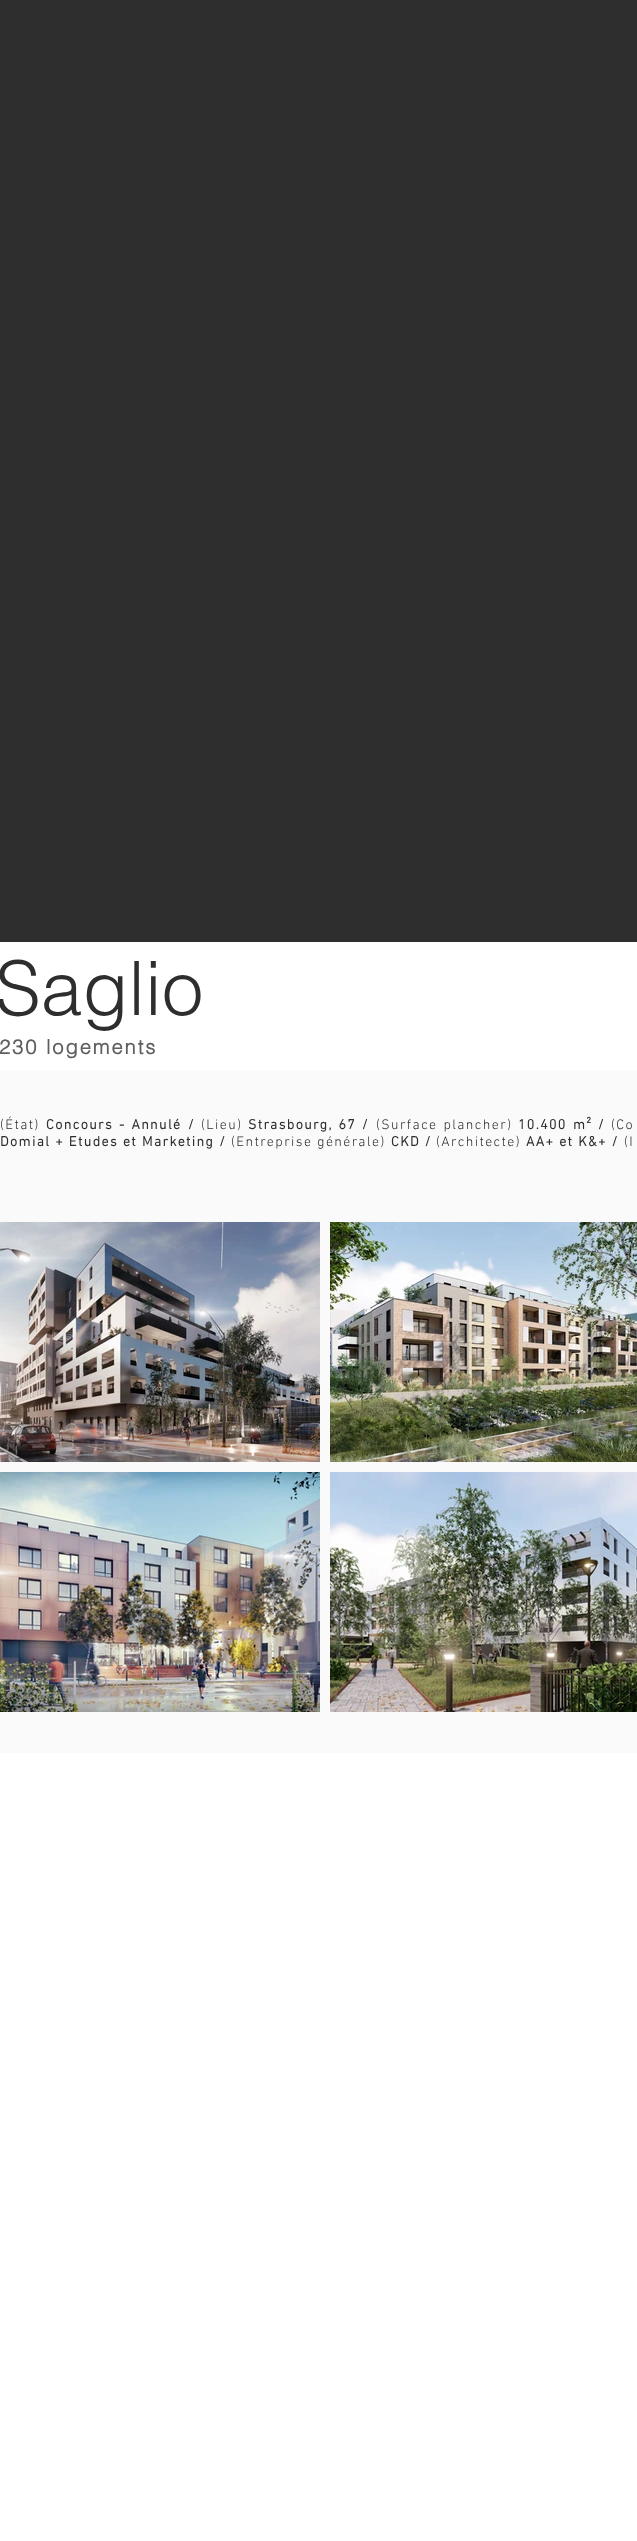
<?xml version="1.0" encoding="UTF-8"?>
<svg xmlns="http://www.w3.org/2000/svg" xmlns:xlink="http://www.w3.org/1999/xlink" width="637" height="2541">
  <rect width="100%" height="100%" fill="#ffffff" />
  <rect width="637" height="942" fill="#2e2e2e" />
  <rect y="1070" width="637" height="683" fill="#fafafa" />
  <image x="0" y="1222" width="320" height="240" xlink:href="image1.png" />
  <image x="330" y="1222" width="307" height="240" xlink:href="image2.png" />
  <image x="0" y="1472" width="320" height="240" xlink:href="image3.png" />
  <image x="330" y="1472" width="307" height="240" xlink:href="image4.png" />
  <text x="-5" y="1015" style="font-family: helvetica; font-size: 75px; font-weight: 300; fill: #2f2e2e">Saglio</text>
  <text x="-1" y="1054" style="font-family: helvetica; font-size: 20px; font-weight: bold; letter-spacing: 2px; fill: #605e5e">230 logements</text>
  <text x="0" y="1129" style="font-family: 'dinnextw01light'; font-size: 14px; font-weight: 300; letter-spacing: 1.4px; fill: #2f2e2e">(État)</text>
  <text x="46" y="1129" word-spacing="1" style="font-family: 'dinnextw01light'; font-size: 14px; font-weight: bold; letter-spacing: 1.4px; fill: #2f2e2e">Concours - Annulé</text>
  <text x="188" y="1129" style="font-family: 'dinnextw01light'; font-size: 14px; font-weight: bold; letter-spacing: 1.4px; fill: #2f2e2e">/</text>
  <text x="201" y="1129" style="font-family: 'dinnextw01light'; font-size: 14px; font-weight: 300; letter-spacing: 1.4px; fill: #2f2e2e">(Lieu)</text>
  <text x="248" y="1129" word-spacing="1" style="font-family: 'dinnextw01light'; font-size: 14px; font-weight: bold; letter-spacing: 1.4px; fill: #2f2e2e">Strasbourg, 67 /</text>
  <text x="376" y="1129" word-spacing="1" style="font-family: 'dinnextw01light'; font-size: 14px; font-weight: 300; letter-spacing: 1.4px; fill: #2f2e2e">(Surface plancher)</text>
  <text x="518" y="1129" style="font-family: 'dinnextw01light'; font-size: 14px; font-weight: bold; letter-spacing: 1.4px; fill: #2f2e2e">10.400</text>
  <text x="573" y="1129" style="font-family: 'dinnextw01light'; font-size: 14px; font-weight: bold; letter-spacing: 1.4px; fill: #2f2e2e">m²</text>
  <text x="598" y="1129" style="font-family: 'dinnextw01light'; font-size: 14px; font-weight: bold; letter-spacing: 1.4px; fill: #2f2e2e">/</text>
  <text x="611" y="1129" word-spacing="1" style="font-family: 'dinnextw01light'; font-size: 14px; font-weight: 300; letter-spacing: 1.4px; fill: #2f2e2e">(Co</text>
  <text x="0" y="1146" style="font-family: 'dinnextw01light'; font-size: 14px; font-weight: bold; letter-spacing: 1.4px; fill: #2f2e2e">Domial + Etudes et Marketing /</text>
  <text x="231" y="1146" style="font-family: 'dinnextw01light'; font-size: 14px; font-weight: 300; letter-spacing: 1.4px; fill: #2f2e2e">(Entreprise générale)</text>
  <text x="391" y="1146" style="font-family: 'dinnextw01light'; font-size: 14px; font-weight: bold; letter-spacing: 1.4px; fill: #2f2e2e">CKD /</text>
  <text x="436" y="1146" style="font-family: 'dinnextw01light'; font-size: 14px; font-weight: 300; letter-spacing: 1.4px; fill: #2f2e2e">(Architecte)</text>
  <text x="526" y="1146" style="font-family: 'dinnextw01light'; font-size: 14px; font-weight: bold; letter-spacing: 1.4px; fill: #2f2e2e">AA+ et K&amp;+ /</text>
  <text x="624" y="1146" style="font-family: 'dinnextw01light'; font-size: 14px; font-weight: 300; letter-spacing: 1.4px; fill: #2f2e2e">(I</text>
</svg>
